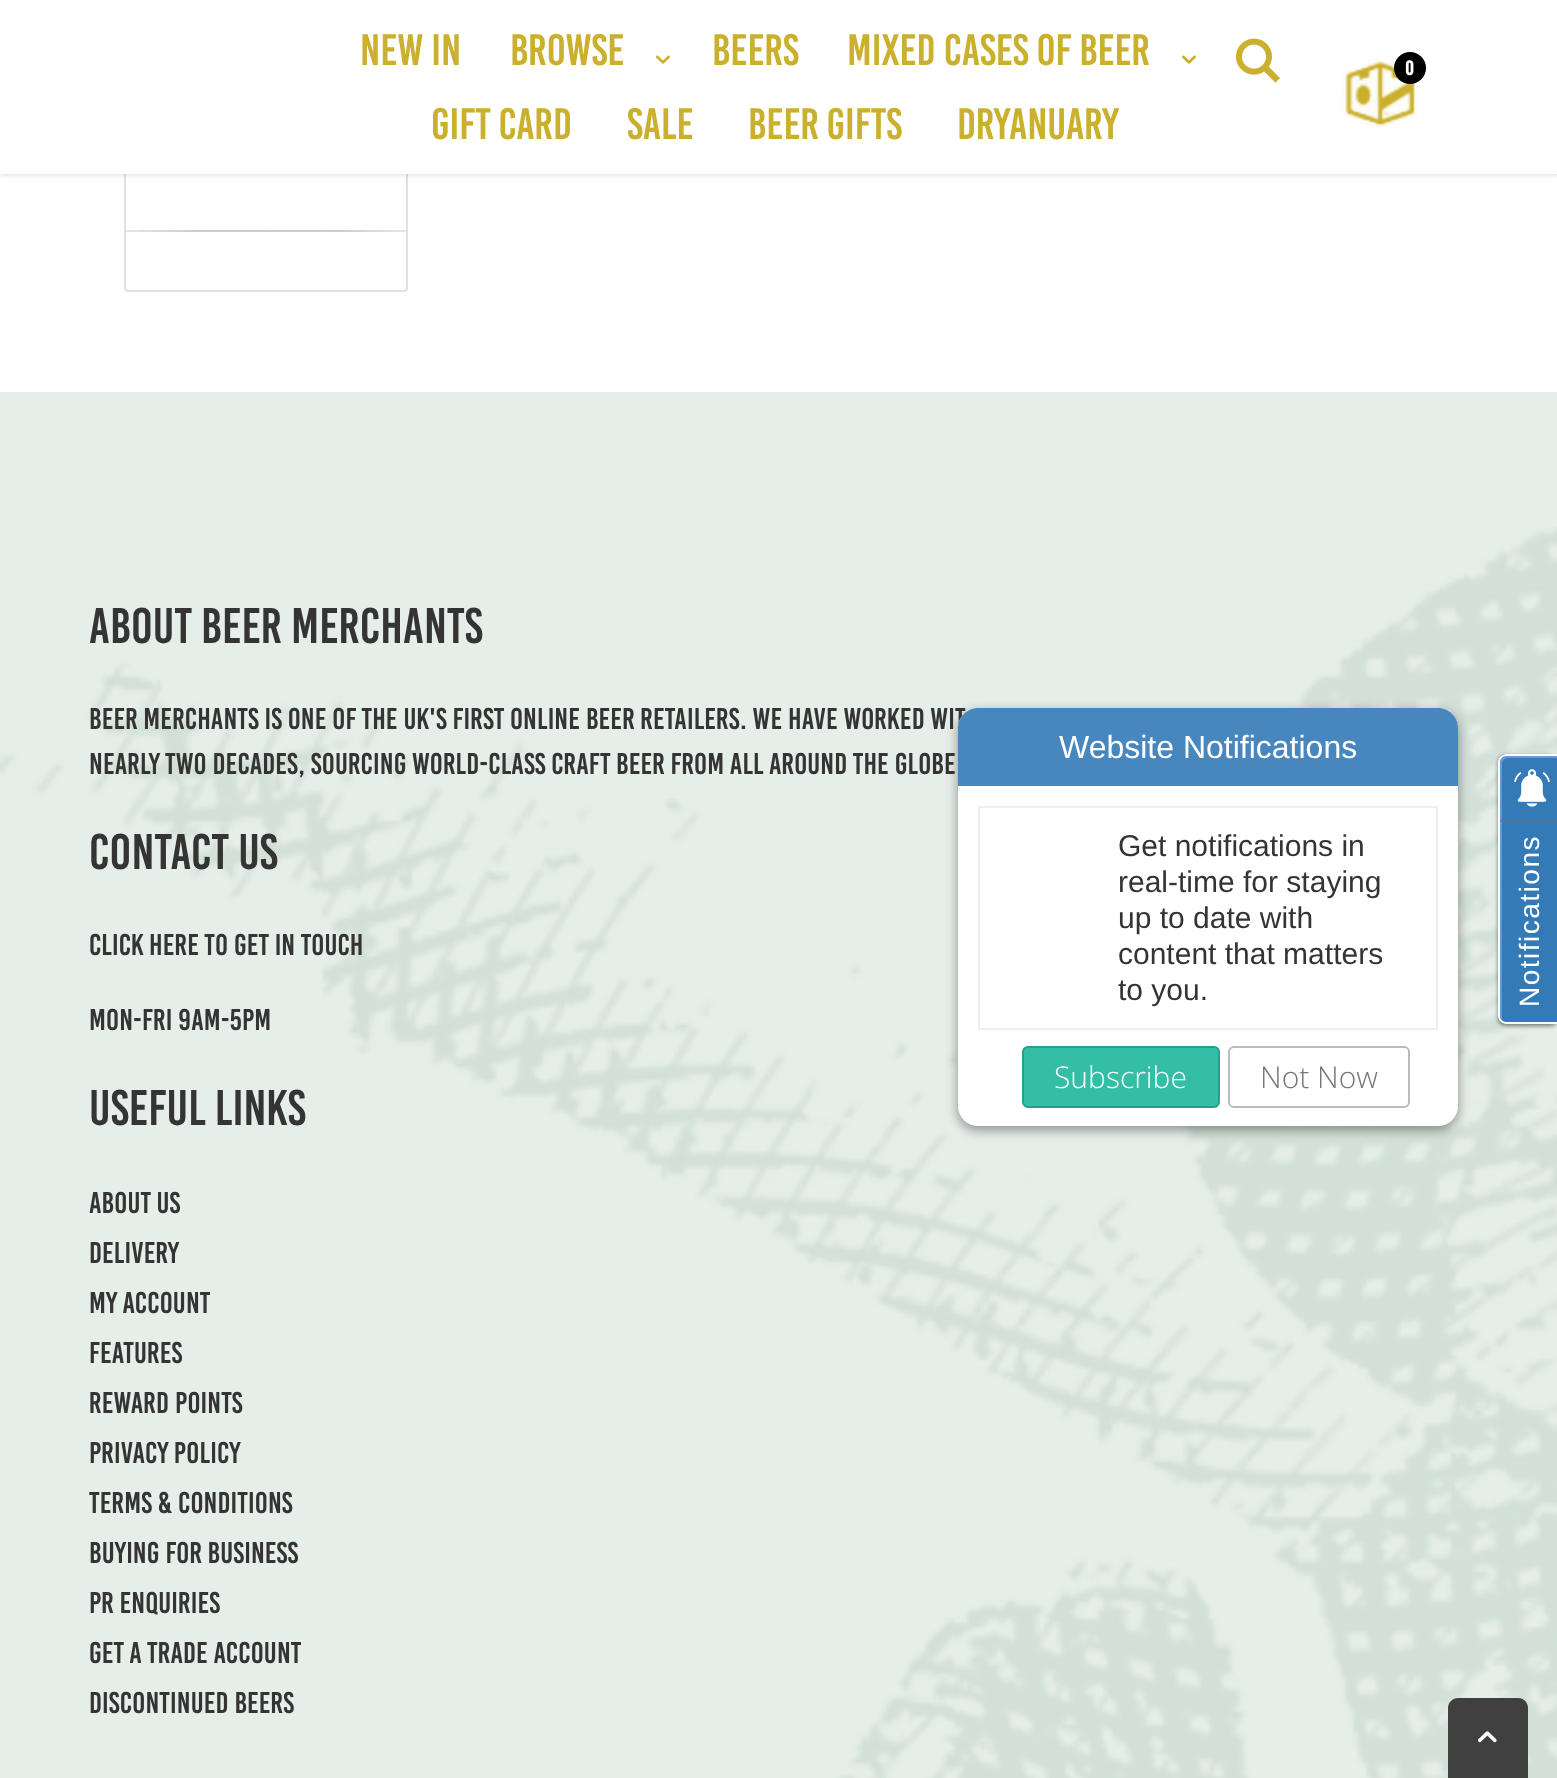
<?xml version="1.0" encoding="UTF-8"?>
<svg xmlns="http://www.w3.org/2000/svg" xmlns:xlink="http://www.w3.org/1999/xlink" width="1557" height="1778">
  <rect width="100%" height="100%" fill="#ffffff" />
  <image x="126" y="230" width="280" height="2" xlink:href="image1.png" />
  <rect x="125" y="-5" width="282" height="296" rx="3" fill="none" stroke="#dae2e6" stroke-width="2" />
  <rect y="2" width="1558" height="174" fill="#000000" fill-opacity="0.1" filter="blur(2px)" />
  <rect width="1557" height="174" fill="#ffffff" />
  <image x="656" y="55" width="14" height="9" xlink:href="image2.png" />
  <image x="1182" y="55" width="14" height="9" xlink:href="image2.png" />
  <image x="1236" y="38" width="44" height="45" xlink:href="image3.png" />
  <image x="1340" y="58" width="78" height="70" xlink:href="image4.png" />
  <circle cx="1410" cy="68" r="16" fill="#000000" />
  <rect y="392" width="1557" height="1386" fill="#e6eee9" />
  <image x="0" y="527" width="1557" height="1251" xlink:href="image5.png" />
  <path d="M 1458 1698 h 60 c 5.5 0 10 4.5 10 10 v 70 h -80 v -70 c 0 -5.5 4.5 -10 10 -10 z" fill="#404040" />
  <image x="1478" y="1731" width="19" height="12" xlink:href="image6.png" />
  <rect x="958" y="712" width="500" height="418" rx="20" fill="#000000" fill-opacity="0.4" filter="blur(6px)" />
  <rect x="1498" y="756" width="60" height="270" rx="8" fill="#000000" fill-opacity="0.5" filter="blur(2px)" />
  <path d="M 1506 754 h 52 v 270 h -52 c -4.5 0 -8 -3.5 -8 -8 v -254 c 0 -4.5 3.5 -8 8 -8 z" fill="#337ab7" />
  <path d="M 1508 758 h 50 v -2 h -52 c -3 0 -6 3 -6 6 v 254 c 0 2 1 4 3 5 c -1 -1 -1 -2 -1 -3 v -254 c 0 -3 3 -6 6 -6 z" fill="#659bc9" />
  <path d="M 1506 754 h 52 v 270 h -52 c -4 0 -8 -4 -8 -8 v -254 c 0 -4 4 -8 8 -8 z m 0 2 h 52 v 266 h -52 c -3 0 -6 -3 -6 -6 v -254 c 0 -3 3 -6 6 -6 z" fill="#ffffff" fill-rule="evenodd" />
  <image x="1514" y="769" width="36" height="38" xlink:href="image7.png" />
  <rect x="1500" y="820" width="57" height="2" fill="#ffffff" fill-opacity="0.25" />
  <rect x="1500" y="820" width="57" height="2" fill="#000000" fill-opacity="0.25" />
  <text x="360" y="65" style="font-family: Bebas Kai; font-size: 44px; fill: #cab02d">NEW IN</text>
  <text x="510" y="65" style="font-family: Bebas Kai; font-size: 44px; fill: #cab02d">BROWSE</text>
  <text x="712" y="65" style="font-family: Bebas Kai; font-size: 44px; fill: #cab02d">BEERS</text>
  <text x="847" y="65" style="font-family: Bebas Kai; font-size: 44px; fill: #cab02d">MIXED CASES OF BEER</text>
  <text x="431" y="139" style="font-family: Bebas Kai; font-size: 44px; fill: #cab02d">GIFT CARD</text>
  <text x="627" y="139" style="font-family: Bebas Kai; font-size: 44px; fill: #cab02d">SALE</text>
  <text x="748" y="139" style="font-family: Bebas Kai; font-size: 44px; fill: #cab02d">BEER GIFTS</text>
  <text x="957" y="139" style="font-family: Bebas Kai; font-size: 44px; fill: #cab02d">DRYANUARY</text>
  <text x="1405" y="75" style="font-family: Bebas Kai; font-size: 20px; font-weight: bold; fill: #ffffff">0</text>
  <text x="89" y="643" style="font-family: Bebas Kai; font-size: 50px; letter-spacing: 0.15px; fill: #343434">ABOUT BEER MERCHANTS</text>
  <text x="89" y="729" style="font-family: Bebas Kai; font-size: 30px; letter-spacing: 0.15px; fill: #343434">Beer Merchants is one of the UK's first online beer retailers. We have worked wit</text>
  <text x="89" y="774" style="font-family: Bebas Kai; font-size: 30px; letter-spacing: 0.15px; fill: #343434">nearly two decades, sourcing world-class craft beer from all around the globe</text>
  <text x="89" y="869" style="font-family: Bebas Kai; font-size: 50px; letter-spacing: 0.15px; fill: #343434">CONTACT US</text>
  <text x="89" y="955" style="font-family: Bebas Kai; font-size: 30px; letter-spacing: 0.15px; fill: #343434">Click here to get in touch</text>
  <text x="89" y="1030" style="font-family: Bebas Kai; font-size: 30px; letter-spacing: 0.15px; fill: #343434">Mon-Fri 9am-5pm</text>
  <text x="89" y="1125" style="font-family: Bebas Kai; font-size: 50px; letter-spacing: 0.15px; fill: #343434">USEFUL LINKS</text>
  <text x="89" y="1213" style="font-family: Bebas Kai; font-size: 30px; letter-spacing: 0.15px; fill: #343434">ABOUT US</text>
  <text x="89" y="1263" style="font-family: Bebas Kai; font-size: 30px; letter-spacing: 0.15px; fill: #343434">DELIVERY</text>
  <text x="89" y="1313" style="font-family: Bebas Kai; font-size: 30px; letter-spacing: 0.15px; fill: #343434">MY ACCOUNT</text>
  <text x="89" y="1363" style="font-family: Bebas Kai; font-size: 30px; letter-spacing: 0.15px; fill: #343434">FEATURES</text>
  <text x="89" y="1413" style="font-family: Bebas Kai; font-size: 30px; letter-spacing: 0.15px; fill: #343434">REWARD POINTS</text>
  <text x="89" y="1463" style="font-family: Bebas Kai; font-size: 30px; letter-spacing: 0.15px; fill: #343434">PRIVACY POLICY</text>
  <text x="89" y="1513" style="font-family: Bebas Kai; font-size: 30px; letter-spacing: 0.15px; fill: #343434">TERMS &amp; CONDITIONS</text>
  <text x="89" y="1563" style="font-family: Bebas Kai; font-size: 30px; letter-spacing: 0.15px; fill: #343434">BUYING FOR BUSINESS</text>
  <text x="89" y="1613" style="font-family: Bebas Kai; font-size: 30px; letter-spacing: 0.15px; fill: #343434">PR ENQUIRIES</text>
  <text x="89" y="1663" style="font-family: Bebas Kai; font-size: 30px; letter-spacing: 0.15px; fill: #343434">GET A TRADE ACCOUNT</text>
  <text x="89" y="1713" style="font-family: Bebas Kai; font-size: 30px; letter-spacing: 0.15px; fill: #343434">DISCONTINUED BEERS</text>
  <rect x="958" y="708" width="500" height="418" rx="20" fill="#ffffff" />
  <path d="M 978 708 h 460 c 11 0 20 9 20 20 v 58 h -500 v -58 c 0 -11 9 -20 20 -20 z" fill="#337ab7" fill-opacity="0.9" />
  <text x="1059" y="758" style="font-family: Liberation Sans; font-size: 32px; fill: #ffffff">Website Notifications</text>
  <rect x="979" y="807" width="458" height="222" fill="none" stroke="#eeeeee" stroke-width="2" />
  <text x="1118" y="856" style="font-family: Liberation Sans; font-size: 30px; fill: #343434">Get notifications in</text>
  <text x="1118" y="892" style="font-family: Liberation Sans; font-size: 30px; fill: #343434">real-time for staying</text>
  <text x="1118" y="928" style="font-family: Liberation Sans; font-size: 30px; fill: #343434">up to date with</text>
  <text x="1118" y="964" style="font-family: Liberation Sans; font-size: 30px; fill: #343434">content that matters</text>
  <text x="1118" y="1000" style="font-family: Liberation Sans; font-size: 30px; fill: #343434">to you.</text>
  <rect x="1023" y="1047" width="196" height="60" rx="5" fill="#33bea6" stroke="#299e8a" stroke-width="2" />
  <text x="1054" y="1088" style="font-family: Open Sans; font-size: 30px; font-weight: 300; fill: #ffffff">Subscribe</text>
  <rect x="1229" y="1047" width="180" height="60" rx="5" fill="none" stroke="#bbbbbb" stroke-width="2" />
  <text x="1260" y="1088" style="font-family: Open Sans; font-size: 30px; font-weight: 300; fill: #777777">Not Now</text>
  <text x="1539" y="1007" transform="rotate(-90 1539 1007)" style="font-family: Liberation Sans; font-size: 28px; letter-spacing: 1.5px; fill: #ffffff">Notifications</text>
</svg>
